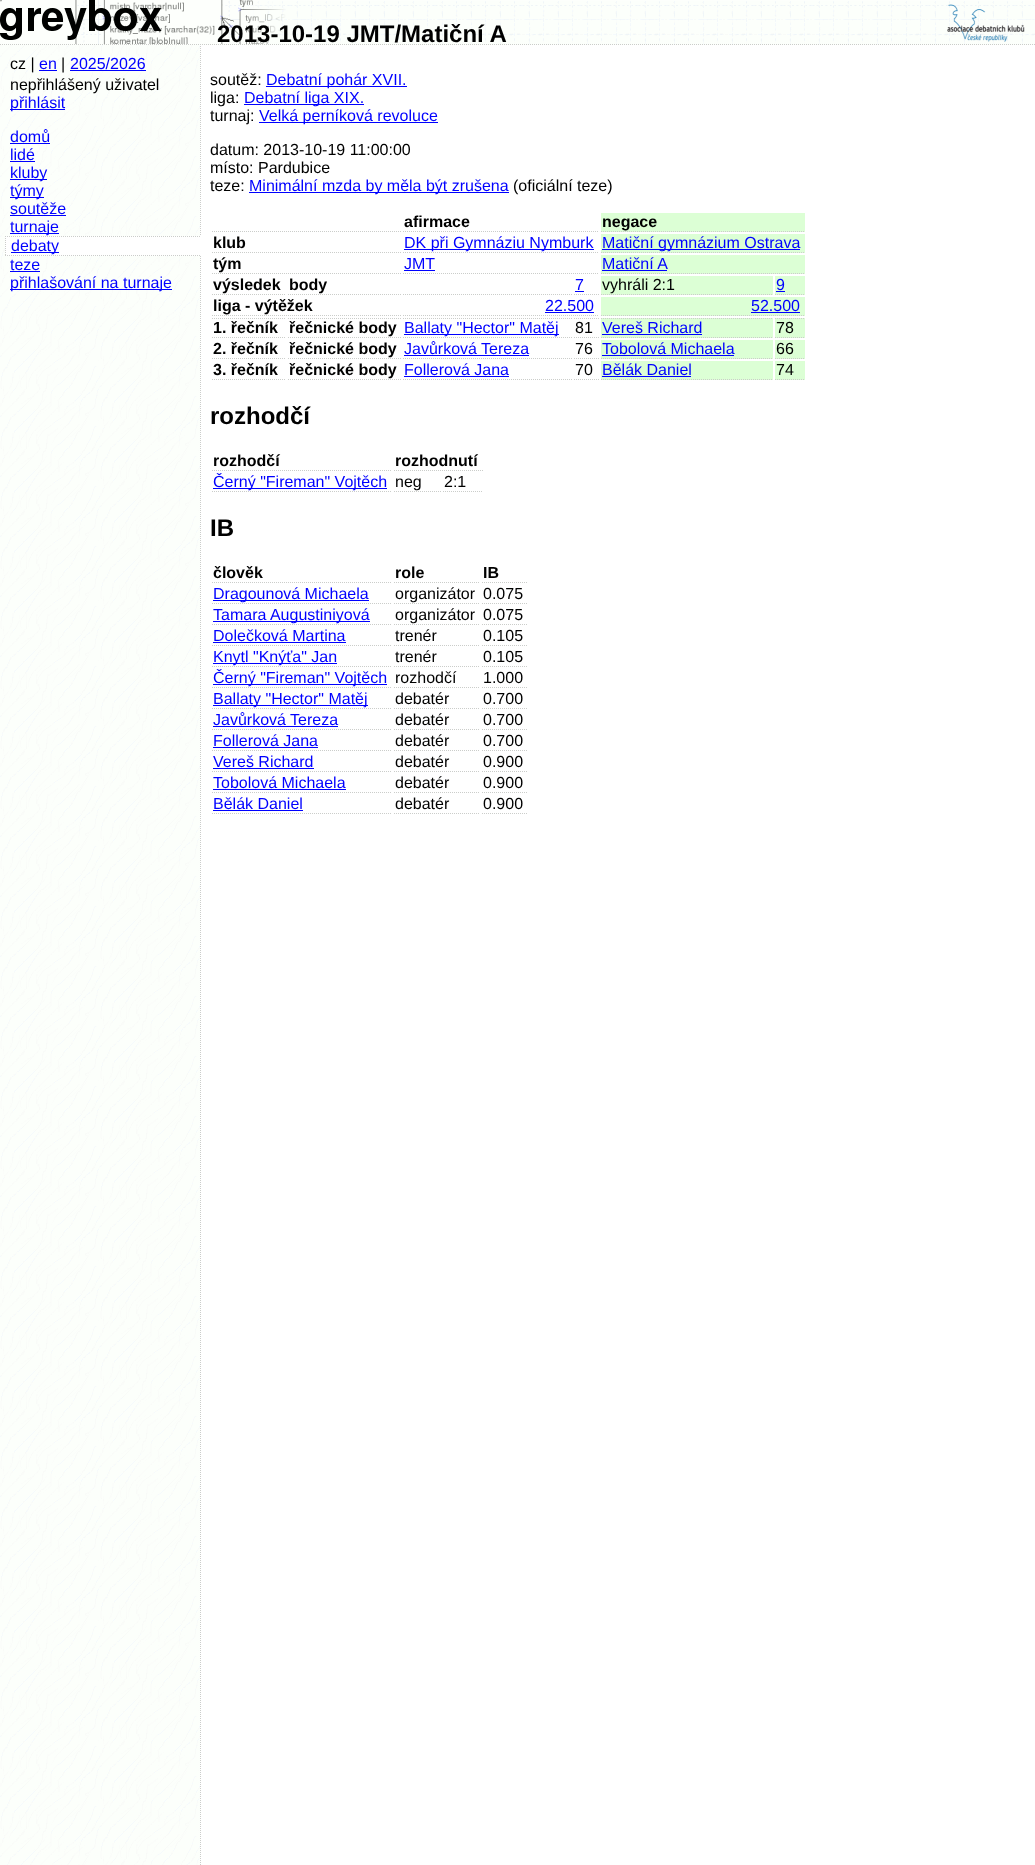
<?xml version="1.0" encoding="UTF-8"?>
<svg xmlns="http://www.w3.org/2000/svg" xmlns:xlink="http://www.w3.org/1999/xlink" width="1035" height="1865">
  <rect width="100%" height="100%" fill="#ffffff" />
  <image x="0" y="45" width="201" height="1820" xlink:href="image1.png" />
  <rect x="1" width="1034" height="45" fill="#fdfffc" />
  <image x="244" y="1" width="791" height="43" xlink:href="image2.png" />
  <path d="M 0 44.5 h 1035" fill="none" stroke="#cbcdca" stroke-dasharray="1 1" />
  <image x="0" y="0" width="286" height="44" xlink:href="image3.png" />
  <image x="947" y="4" width="78" height="38" xlink:href="image4.png" />
  <rect x="39" y="70" width="18" height="1" fill="#0000ff" />
  <rect x="70" y="70" width="76" height="1" fill="#0000ff" />
  <rect x="10" y="109" width="55" height="1" fill="#0000ff" />
  <rect x="10" y="143" width="40" height="1" fill="#0000ff" />
  <rect x="10" y="161" width="25" height="1" fill="#0000ff" />
  <rect x="10" y="179" width="37" height="1" fill="#0000ff" />
  <rect x="10" y="197" width="34" height="1" fill="#0000ff" />
  <rect x="10" y="215" width="56" height="1" fill="#0000ff" />
  <rect x="10" y="233" width="49" height="1" fill="#0000ff" />
  <rect x="5" y="236" width="196" height="20" fill="#ffffff" />
  <path d="M 5 236.5 h 196" fill="none" stroke="#cbcdca" stroke-dasharray="1 1" />
  <path d="M 5 255.5 h 196" fill="none" stroke="#cbcdca" stroke-dasharray="1 1" />
  <path d="M 5.5 236 v 20" fill="none" stroke="#cbcdca" stroke-dasharray="1 1" />
  <rect x="11" y="252" width="48" height="1" fill="#0000ff" />
  <rect x="10" y="271" width="30" height="1" fill="#0000ff" />
  <rect x="10" y="289" width="162" height="1" fill="#0000ff" />
  <rect x="266" y="86" width="141" height="1" fill="#0000ff" />
  <rect x="244" y="104" width="120" height="1" fill="#0000ff" />
  <rect x="259" y="122" width="179" height="1" fill="#0000ff" />
  <rect x="249" y="192" width="260" height="1" fill="#0000ff" />
  <path d="M 403 231.5 h 196" fill="none" stroke="#cbcdca" stroke-dasharray="1 1" />
  <rect x="601" y="213" width="204" height="19" fill="#dcffd5" />
  <path d="M 601 231.5 h 204" fill="none" stroke="#cbcdca" stroke-dasharray="1 1" />
  <path d="M 212 231.5 h 189" fill="none" stroke="#cbcdca" stroke-dasharray="1 1" />
  <path d="M 212 252.5 h 189" fill="none" stroke="#cbcdca" stroke-dasharray="1 1" />
  <path d="M 403 252.5 h 196" fill="none" stroke="#cbcdca" stroke-dasharray="1 1" />
  <rect x="404" y="249" width="190" height="1" fill="#0000ff" />
  <rect x="601" y="234" width="204" height="19" fill="#dcffd5" />
  <path d="M 601 252.5 h 204" fill="none" stroke="#cbcdca" stroke-dasharray="1 1" />
  <rect x="602" y="249" width="198" height="1" fill="#0000ff" />
  <path d="M 212 273.5 h 189" fill="none" stroke="#cbcdca" stroke-dasharray="1 1" />
  <path d="M 403 273.5 h 196" fill="none" stroke="#cbcdca" stroke-dasharray="1 1" />
  <rect x="404" y="270" width="31" height="1" fill="#0000ff" />
  <rect x="601" y="255" width="204" height="19" fill="#dcffd5" />
  <path d="M 601 273.5 h 204" fill="none" stroke="#cbcdca" stroke-dasharray="1 1" />
  <rect x="602" y="270" width="65" height="1" fill="#0000ff" />
  <path d="M 212 294.5 h 74" fill="none" stroke="#cbcdca" stroke-dasharray="1 1" />
  <path d="M 288 294.5 h 113" fill="none" stroke="#cbcdca" stroke-dasharray="1 1" />
  <path d="M 574 294.5 h 25" fill="none" stroke="#cbcdca" stroke-dasharray="1 1" />
  <rect x="575" y="291" width="9" height="1" fill="#0000ff" />
  <rect x="601" y="276" width="172" height="19" fill="#dcffd5" />
  <path d="M 601 294.5 h 172" fill="none" stroke="#cbcdca" stroke-dasharray="1 1" />
  <rect x="775" y="276" width="30" height="19" fill="#dcffd5" />
  <path d="M 775 294.5 h 30" fill="none" stroke="#cbcdca" stroke-dasharray="1 1" />
  <rect x="776" y="291" width="9" height="1" fill="#0000ff" />
  <path d="M 403 294.5 h 169" fill="none" stroke="#cbcdca" stroke-dasharray="1 1" />
  <path d="M 212 315.5 h 189" fill="none" stroke="#cbcdca" stroke-dasharray="1 1" />
  <path d="M 403 315.5 h 196" fill="none" stroke="#cbcdca" stroke-dasharray="1 1" />
  <rect x="545" y="312" width="49" height="1" fill="#0000ff" />
  <rect x="601" y="297" width="204" height="19" fill="#dcffd5" />
  <path d="M 601 315.5 h 204" fill="none" stroke="#cbcdca" stroke-dasharray="1 1" />
  <rect x="751" y="312" width="49" height="1" fill="#0000ff" />
  <path d="M 212 318.5 h 74" fill="none" stroke="#cbcdca" stroke-dasharray="1 1" />
  <path d="M 212 337.5 h 74" fill="none" stroke="#cbcdca" stroke-dasharray="1 1" />
  <path d="M 288 318.5 h 113" fill="none" stroke="#cbcdca" stroke-dasharray="1 1" />
  <path d="M 288 337.5 h 113" fill="none" stroke="#cbcdca" stroke-dasharray="1 1" />
  <path d="M 403 318.5 h 169" fill="none" stroke="#cbcdca" stroke-dasharray="1 1" />
  <path d="M 403 337.5 h 169" fill="none" stroke="#cbcdca" stroke-dasharray="1 1" />
  <rect x="404" y="334" width="155" height="1" fill="#0000ff" />
  <path d="M 574 318.5 h 25 m -25 19 h 25" fill="none" stroke="#cbcdca" stroke-dasharray="1 1" />
  <rect x="601" y="318" width="172" height="20" fill="#dcffd5" />
  <path d="M 601 318.5 h 172" fill="none" stroke="#cbcdca" stroke-dasharray="1 1" />
  <path d="M 601 337.5 h 172" fill="none" stroke="#cbcdca" stroke-dasharray="1 1" />
  <rect x="602" y="334" width="100" height="1" fill="#0000ff" />
  <rect x="775" y="318" width="30" height="20" fill="#dcffd5" />
  <path d="M 775 318.5 h 30 m -30 19 h 30" fill="none" stroke="#cbcdca" stroke-dasharray="1 1" />
  <path d="M 212 358.5 h 74" fill="none" stroke="#cbcdca" stroke-dasharray="1 1" />
  <path d="M 288 358.5 h 113" fill="none" stroke="#cbcdca" stroke-dasharray="1 1" />
  <path d="M 403 358.5 h 169" fill="none" stroke="#cbcdca" stroke-dasharray="1 1" />
  <rect x="404" y="355" width="125" height="1" fill="#0000ff" />
  <path d="M 574 358.5 h 25" fill="none" stroke="#cbcdca" stroke-dasharray="1 1" />
  <rect x="601" y="340" width="172" height="19" fill="#dcffd5" />
  <path d="M 601 358.5 h 172" fill="none" stroke="#cbcdca" stroke-dasharray="1 1" />
  <rect x="602" y="355" width="132" height="1" fill="#0000ff" />
  <rect x="775" y="340" width="30" height="19" fill="#dcffd5" />
  <path d="M 775 358.5 h 30" fill="none" stroke="#cbcdca" stroke-dasharray="1 1" />
  <path d="M 212 379.5 h 74" fill="none" stroke="#cbcdca" stroke-dasharray="1 1" />
  <path d="M 288 379.5 h 113" fill="none" stroke="#cbcdca" stroke-dasharray="1 1" />
  <path d="M 403 379.5 h 169" fill="none" stroke="#cbcdca" stroke-dasharray="1 1" />
  <rect x="404" y="376" width="105" height="1" fill="#0000ff" />
  <path d="M 574 379.5 h 25" fill="none" stroke="#cbcdca" stroke-dasharray="1 1" />
  <rect x="601" y="361" width="172" height="19" fill="#dcffd5" />
  <path d="M 601 379.5 h 172" fill="none" stroke="#cbcdca" stroke-dasharray="1 1" />
  <rect x="602" y="376" width="89" height="1" fill="#0000ff" />
  <rect x="775" y="361" width="30" height="19" fill="#dcffd5" />
  <path d="M 775 379.5 h 30" fill="none" stroke="#cbcdca" stroke-dasharray="1 1" />
  <path d="M 212 470.5 h 180" fill="none" stroke="#cbcdca" stroke-dasharray="1 1" />
  <path d="M 394 470.5 h 89" fill="none" stroke="#cbcdca" stroke-dasharray="1 1" />
  <path d="M 212 491.5 h 180" fill="none" stroke="#cbcdca" stroke-dasharray="1 1" />
  <rect x="213" y="488" width="174" height="1" fill="#0000ff" />
  <path d="M 394 491.5 h 47" fill="none" stroke="#cbcdca" stroke-dasharray="1 1" />
  <path d="M 443 491.5 h 40" fill="none" stroke="#cbcdca" stroke-dasharray="1 1" />
  <path d="M 212 582.5 h 180" fill="none" stroke="#cbcdca" stroke-dasharray="1 1" />
  <path d="M 394 582.5 h 86" fill="none" stroke="#cbcdca" stroke-dasharray="1 1" />
  <path d="M 482 582.5 h 46" fill="none" stroke="#cbcdca" stroke-dasharray="1 1" />
  <path d="M 212 603.5 h 180" fill="none" stroke="#cbcdca" stroke-dasharray="1 1" />
  <rect x="213" y="600" width="156" height="1" fill="#0000ff" />
  <path d="M 394 603.5 h 86" fill="none" stroke="#cbcdca" stroke-dasharray="1 1" />
  <path d="M 482 603.5 h 46" fill="none" stroke="#cbcdca" stroke-dasharray="1 1" />
  <path d="M 212 624.5 h 180" fill="none" stroke="#cbcdca" stroke-dasharray="1 1" />
  <rect x="213" y="621" width="157" height="1" fill="#0000ff" />
  <path d="M 394 624.5 h 86" fill="none" stroke="#cbcdca" stroke-dasharray="1 1" />
  <path d="M 482 624.5 h 46" fill="none" stroke="#cbcdca" stroke-dasharray="1 1" />
  <path d="M 212 645.5 h 180" fill="none" stroke="#cbcdca" stroke-dasharray="1 1" />
  <rect x="213" y="642" width="133" height="1" fill="#0000ff" />
  <path d="M 394 645.5 h 86" fill="none" stroke="#cbcdca" stroke-dasharray="1 1" />
  <path d="M 482 645.5 h 46" fill="none" stroke="#cbcdca" stroke-dasharray="1 1" />
  <path d="M 212 666.5 h 180" fill="none" stroke="#cbcdca" stroke-dasharray="1 1" />
  <rect x="213" y="663" width="124" height="1" fill="#0000ff" />
  <path d="M 394 666.5 h 86" fill="none" stroke="#cbcdca" stroke-dasharray="1 1" />
  <path d="M 482 666.5 h 46" fill="none" stroke="#cbcdca" stroke-dasharray="1 1" />
  <path d="M 212 687.5 h 180" fill="none" stroke="#cbcdca" stroke-dasharray="1 1" />
  <rect x="213" y="684" width="174" height="1" fill="#0000ff" />
  <path d="M 394 687.5 h 86" fill="none" stroke="#cbcdca" stroke-dasharray="1 1" />
  <path d="M 482 687.5 h 46" fill="none" stroke="#cbcdca" stroke-dasharray="1 1" />
  <path d="M 212 708.5 h 180" fill="none" stroke="#cbcdca" stroke-dasharray="1 1" />
  <rect x="213" y="705" width="155" height="1" fill="#0000ff" />
  <path d="M 394 708.5 h 86" fill="none" stroke="#cbcdca" stroke-dasharray="1 1" />
  <path d="M 482 708.5 h 46" fill="none" stroke="#cbcdca" stroke-dasharray="1 1" />
  <path d="M 212 729.5 h 180" fill="none" stroke="#cbcdca" stroke-dasharray="1 1" />
  <rect x="213" y="726" width="125" height="1" fill="#0000ff" />
  <path d="M 394 729.5 h 86" fill="none" stroke="#cbcdca" stroke-dasharray="1 1" />
  <path d="M 482 729.5 h 46" fill="none" stroke="#cbcdca" stroke-dasharray="1 1" />
  <path d="M 212 750.5 h 180" fill="none" stroke="#cbcdca" stroke-dasharray="1 1" />
  <rect x="213" y="747" width="105" height="1" fill="#0000ff" />
  <path d="M 394 750.5 h 86" fill="none" stroke="#cbcdca" stroke-dasharray="1 1" />
  <path d="M 482 750.5 h 46" fill="none" stroke="#cbcdca" stroke-dasharray="1 1" />
  <path d="M 212 771.5 h 180" fill="none" stroke="#cbcdca" stroke-dasharray="1 1" />
  <rect x="213" y="768" width="101" height="1" fill="#0000ff" />
  <path d="M 394 771.5 h 86" fill="none" stroke="#cbcdca" stroke-dasharray="1 1" />
  <path d="M 482 771.5 h 46" fill="none" stroke="#cbcdca" stroke-dasharray="1 1" />
  <path d="M 212 792.5 h 180" fill="none" stroke="#cbcdca" stroke-dasharray="1 1" />
  <rect x="213" y="789" width="133" height="1" fill="#0000ff" />
  <path d="M 394 792.5 h 86" fill="none" stroke="#cbcdca" stroke-dasharray="1 1" />
  <path d="M 482 792.5 h 46" fill="none" stroke="#cbcdca" stroke-dasharray="1 1" />
  <path d="M 212 813.5 h 180" fill="none" stroke="#cbcdca" stroke-dasharray="1 1" />
  <rect x="213" y="810" width="90" height="1" fill="#0000ff" />
  <path d="M 394 813.5 h 86" fill="none" stroke="#cbcdca" stroke-dasharray="1 1" />
  <path d="M 482 813.5 h 46" fill="none" stroke="#cbcdca" stroke-dasharray="1 1" />
  <text x="217" y="42" style="font-family: Liberation Sans; font-size: 24px; font-weight: bold; fill: #000000">2013-10-19 JMT/Matiční A</text>
  <text x="10" y="69" style="font-family: Liberation Sans; font-size: 16px; fill: #000000">cz |</text>
  <text x="39" y="69" style="font-family: Liberation Sans; font-size: 16px; fill: #0000ff">en</text>
  <text x="61" y="69" style="font-family: Liberation Sans; font-size: 16px; fill: #000000">|</text>
  <text x="70" y="69" style="font-family: Liberation Sans; font-size: 16px; fill: #0000ff">2025/2026</text>
  <text x="10" y="90" style="font-family: Liberation Sans; font-size: 16px; fill: #000000">nepřihlášený uživatel</text>
  <text x="10" y="108" style="font-family: Liberation Sans; font-size: 16px; fill: #0000ff">přihlásit</text>
  <text x="10" y="142" style="font-family: Liberation Sans; font-size: 16px; fill: #0000ff">domů</text>
  <text x="10" y="160" style="font-family: Liberation Sans; font-size: 16px; fill: #0000ff">lidé</text>
  <text x="10" y="178" style="font-family: Liberation Sans; font-size: 16px; fill: #0000ff">kluby</text>
  <text x="10" y="196" style="font-family: Liberation Sans; font-size: 16px; fill: #0000ff">týmy</text>
  <text x="10" y="214" style="font-family: Liberation Sans; font-size: 16px; fill: #0000ff">soutěže</text>
  <text x="10" y="232" style="font-family: Liberation Sans; font-size: 16px; fill: #0000ff">turnaje</text>
  <text x="11" y="251" style="font-family: Liberation Sans; font-size: 16px; fill: #0000ff">debaty</text>
  <text x="10" y="270" style="font-family: Liberation Sans; font-size: 16px; fill: #0000ff">teze</text>
  <text x="10" y="288" style="font-family: Liberation Sans; font-size: 16px; fill: #0000ff">přihlašování na turnaje</text>
  <text x="210" y="85" style="font-family: Liberation Sans; font-size: 16px; fill: #000000">soutěž:</text>
  <text x="266" y="85" style="font-family: Liberation Sans; font-size: 16px; fill: #0000ff">Debatní pohár XVII.</text>
  <text x="210" y="103" style="font-family: Liberation Sans; font-size: 16px; fill: #000000">liga:</text>
  <text x="244" y="103" style="font-family: Liberation Sans; font-size: 16px; fill: #0000ff">Debatní liga XIX.</text>
  <text x="210" y="121" style="font-family: Liberation Sans; font-size: 16px; fill: #000000">turnaj:</text>
  <text x="259" y="121" style="font-family: Liberation Sans; font-size: 16px; fill: #0000ff">Velká perníková revoluce</text>
  <text x="210" y="155" style="font-family: Liberation Sans; font-size: 16px; fill: #000000">datum: 2013-10-19 11:00:00</text>
  <text x="210" y="173" style="font-family: Liberation Sans; font-size: 16px; fill: #000000">místo: Pardubice</text>
  <text x="210" y="191" style="font-family: Liberation Sans; font-size: 16px; fill: #000000">teze:</text>
  <text x="249" y="191" style="font-family: Liberation Sans; font-size: 16px; fill: #0000ff">Minimální mzda by měla být zrušena</text>
  <text x="513" y="191" style="font-family: Liberation Sans; font-size: 16px; fill: #000000">(oficiální teze)</text>
  <text x="404" y="227" style="font-family: Liberation Sans; font-size: 16px; font-weight: bold; fill: #000000">afirmace</text>
  <text x="602" y="227" style="font-family: Liberation Sans; font-size: 16px; font-weight: bold; fill: #000000">negace</text>
  <text x="213" y="248" style="font-family: Liberation Sans; font-size: 16px; font-weight: bold; fill: #000000">klub</text>
  <text x="404" y="248" style="font-family: Liberation Sans; font-size: 16px; fill: #0000ff">DK při Gymnáziu Nymburk</text>
  <text x="602" y="248" style="font-family: Liberation Sans; font-size: 16px; fill: #0000ff">Matiční gymnázium Ostrava</text>
  <text x="213" y="269" style="font-family: Liberation Sans; font-size: 16px; font-weight: bold; fill: #000000">tým</text>
  <text x="404" y="269" style="font-family: Liberation Sans; font-size: 16px; fill: #0000ff">JMT</text>
  <text x="602" y="269" style="font-family: Liberation Sans; font-size: 16px; fill: #0000ff">Matiční A</text>
  <text x="213" y="290" style="font-family: Liberation Sans; font-size: 16px; font-weight: bold; fill: #000000">výsledek</text>
  <text x="289" y="290" style="font-family: Liberation Sans; font-size: 16px; font-weight: bold; fill: #000000">body</text>
  <text x="575" y="290" style="font-family: Liberation Sans; font-size: 16px; fill: #0000ff">7</text>
  <text x="602" y="290" style="font-family: Liberation Sans; font-size: 16px; fill: #000000">vyhráli 2:1</text>
  <text x="776" y="290" style="font-family: Liberation Sans; font-size: 16px; fill: #0000ff">9</text>
  <text x="213" y="311" style="font-family: Liberation Sans; font-size: 16px; font-weight: bold; fill: #000000">liga - výtěžek</text>
  <text x="545" y="311" style="font-family: Liberation Sans; font-size: 16px; fill: #0000ff">22.500</text>
  <text x="751" y="311" style="font-family: Liberation Sans; font-size: 16px; fill: #0000ff">52.500</text>
  <text x="213" y="333" style="font-family: Liberation Sans; font-size: 16px; font-weight: bold; fill: #000000">1. řečník</text>
  <text x="289" y="333" style="font-family: Liberation Sans; font-size: 16px; font-weight: bold; fill: #000000">řečnické body</text>
  <text x="404" y="333" style="font-family: Liberation Sans; font-size: 16px; fill: #0000ff">Ballaty "Hector" Matěj</text>
  <text x="575" y="333" style="font-family: Liberation Sans; font-size: 16px; fill: #000000">81</text>
  <text x="602" y="333" style="font-family: Liberation Sans; font-size: 16px; fill: #0000ff">Vereš Richard</text>
  <text x="776" y="333" style="font-family: Liberation Sans; font-size: 16px; fill: #000000">78</text>
  <text x="213" y="354" style="font-family: Liberation Sans; font-size: 16px; font-weight: bold; fill: #000000">2. řečník</text>
  <text x="289" y="354" style="font-family: Liberation Sans; font-size: 16px; font-weight: bold; fill: #000000">řečnické body</text>
  <text x="404" y="354" style="font-family: Liberation Sans; font-size: 16px; fill: #0000ff">Javůrková Tereza</text>
  <text x="575" y="354" style="font-family: Liberation Sans; font-size: 16px; fill: #000000">76</text>
  <text x="602" y="354" style="font-family: Liberation Sans; font-size: 16px; fill: #0000ff">Tobolová Michaela</text>
  <text x="776" y="354" style="font-family: Liberation Sans; font-size: 16px; fill: #000000">66</text>
  <text x="213" y="375" style="font-family: Liberation Sans; font-size: 16px; font-weight: bold; fill: #000000">3. řečník</text>
  <text x="289" y="375" style="font-family: Liberation Sans; font-size: 16px; font-weight: bold; fill: #000000">řečnické body</text>
  <text x="404" y="375" style="font-family: Liberation Sans; font-size: 16px; fill: #0000ff">Follerová Jana</text>
  <text x="575" y="375" style="font-family: Liberation Sans; font-size: 16px; fill: #000000">70</text>
  <text x="602" y="375" style="font-family: Liberation Sans; font-size: 16px; fill: #0000ff">Bělák Daniel</text>
  <text x="776" y="375" style="font-family: Liberation Sans; font-size: 16px; fill: #000000">74</text>
  <text x="210" y="424" style="font-family: Liberation Sans; font-size: 24px; font-weight: bold; fill: #000000">rozhodčí</text>
  <text x="213" y="466" style="font-family: Liberation Sans; font-size: 16px; font-weight: bold; fill: #000000">rozhodčí</text>
  <text x="395" y="466" style="font-family: Liberation Sans; font-size: 16px; font-weight: bold; fill: #000000">rozhodnutí</text>
  <text x="213" y="487" style="font-family: Liberation Sans; font-size: 16px; fill: #0000ff">Černý "Fireman" Vojtěch</text>
  <text x="395" y="487" style="font-family: Liberation Sans; font-size: 16px; fill: #000000">neg</text>
  <text x="444" y="487" style="font-family: Liberation Sans; font-size: 16px; fill: #000000">2:1</text>
  <text x="210" y="536" style="font-family: Liberation Sans; font-size: 24px; font-weight: bold; fill: #000000">IB</text>
  <text x="213" y="578" style="font-family: Liberation Sans; font-size: 16px; font-weight: bold; fill: #000000">člověk</text>
  <text x="395" y="578" style="font-family: Liberation Sans; font-size: 16px; font-weight: bold; fill: #000000">role</text>
  <text x="483" y="578" style="font-family: Liberation Sans; font-size: 16px; font-weight: bold; fill: #000000">IB</text>
  <text x="213" y="599" style="font-family: Liberation Sans; font-size: 16px; fill: #0000ff">Dragounová Michaela</text>
  <text x="395" y="599" style="font-family: Liberation Sans; font-size: 16px; fill: #000000">organizátor</text>
  <text x="483" y="599" style="font-family: Liberation Sans; font-size: 16px; fill: #000000">0.075</text>
  <text x="213" y="620" style="font-family: Liberation Sans; font-size: 16px; fill: #0000ff">Tamara Augustiniyová</text>
  <text x="395" y="620" style="font-family: Liberation Sans; font-size: 16px; fill: #000000">organizátor</text>
  <text x="483" y="620" style="font-family: Liberation Sans; font-size: 16px; fill: #000000">0.075</text>
  <text x="213" y="641" style="font-family: Liberation Sans; font-size: 16px; fill: #0000ff">Dolečková Martina</text>
  <text x="395" y="641" style="font-family: Liberation Sans; font-size: 16px; fill: #000000">trenér</text>
  <text x="483" y="641" style="font-family: Liberation Sans; font-size: 16px; fill: #000000">0.105</text>
  <text x="213" y="662" style="font-family: Liberation Sans; font-size: 16px; fill: #0000ff">Knytl "Knýťa" Jan</text>
  <text x="395" y="662" style="font-family: Liberation Sans; font-size: 16px; fill: #000000">trenér</text>
  <text x="483" y="662" style="font-family: Liberation Sans; font-size: 16px; fill: #000000">0.105</text>
  <text x="213" y="683" style="font-family: Liberation Sans; font-size: 16px; fill: #0000ff">Černý "Fireman" Vojtěch</text>
  <text x="395" y="683" style="font-family: Liberation Sans; font-size: 16px; fill: #000000">rozhodčí</text>
  <text x="483" y="683" style="font-family: Liberation Sans; font-size: 16px; fill: #000000">1.000</text>
  <text x="213" y="704" style="font-family: Liberation Sans; font-size: 16px; fill: #0000ff">Ballaty "Hector" Matěj</text>
  <text x="395" y="704" style="font-family: Liberation Sans; font-size: 16px; fill: #000000">debatér</text>
  <text x="483" y="704" style="font-family: Liberation Sans; font-size: 16px; fill: #000000">0.700</text>
  <text x="213" y="725" style="font-family: Liberation Sans; font-size: 16px; fill: #0000ff">Javůrková Tereza</text>
  <text x="395" y="725" style="font-family: Liberation Sans; font-size: 16px; fill: #000000">debatér</text>
  <text x="483" y="725" style="font-family: Liberation Sans; font-size: 16px; fill: #000000">0.700</text>
  <text x="213" y="746" style="font-family: Liberation Sans; font-size: 16px; fill: #0000ff">Follerová Jana</text>
  <text x="395" y="746" style="font-family: Liberation Sans; font-size: 16px; fill: #000000">debatér</text>
  <text x="483" y="746" style="font-family: Liberation Sans; font-size: 16px; fill: #000000">0.700</text>
  <text x="213" y="767" style="font-family: Liberation Sans; font-size: 16px; fill: #0000ff">Vereš Richard</text>
  <text x="395" y="767" style="font-family: Liberation Sans; font-size: 16px; fill: #000000">debatér</text>
  <text x="483" y="767" style="font-family: Liberation Sans; font-size: 16px; fill: #000000">0.900</text>
  <text x="213" y="788" style="font-family: Liberation Sans; font-size: 16px; fill: #0000ff">Tobolová Michaela</text>
  <text x="395" y="788" style="font-family: Liberation Sans; font-size: 16px; fill: #000000">debatér</text>
  <text x="483" y="788" style="font-family: Liberation Sans; font-size: 16px; fill: #000000">0.900</text>
  <text x="213" y="809" style="font-family: Liberation Sans; font-size: 16px; fill: #0000ff">Bělák Daniel</text>
  <text x="395" y="809" style="font-family: Liberation Sans; font-size: 16px; fill: #000000">debatér</text>
  <text x="483" y="809" style="font-family: Liberation Sans; font-size: 16px; fill: #000000">0.900</text>
</svg>
